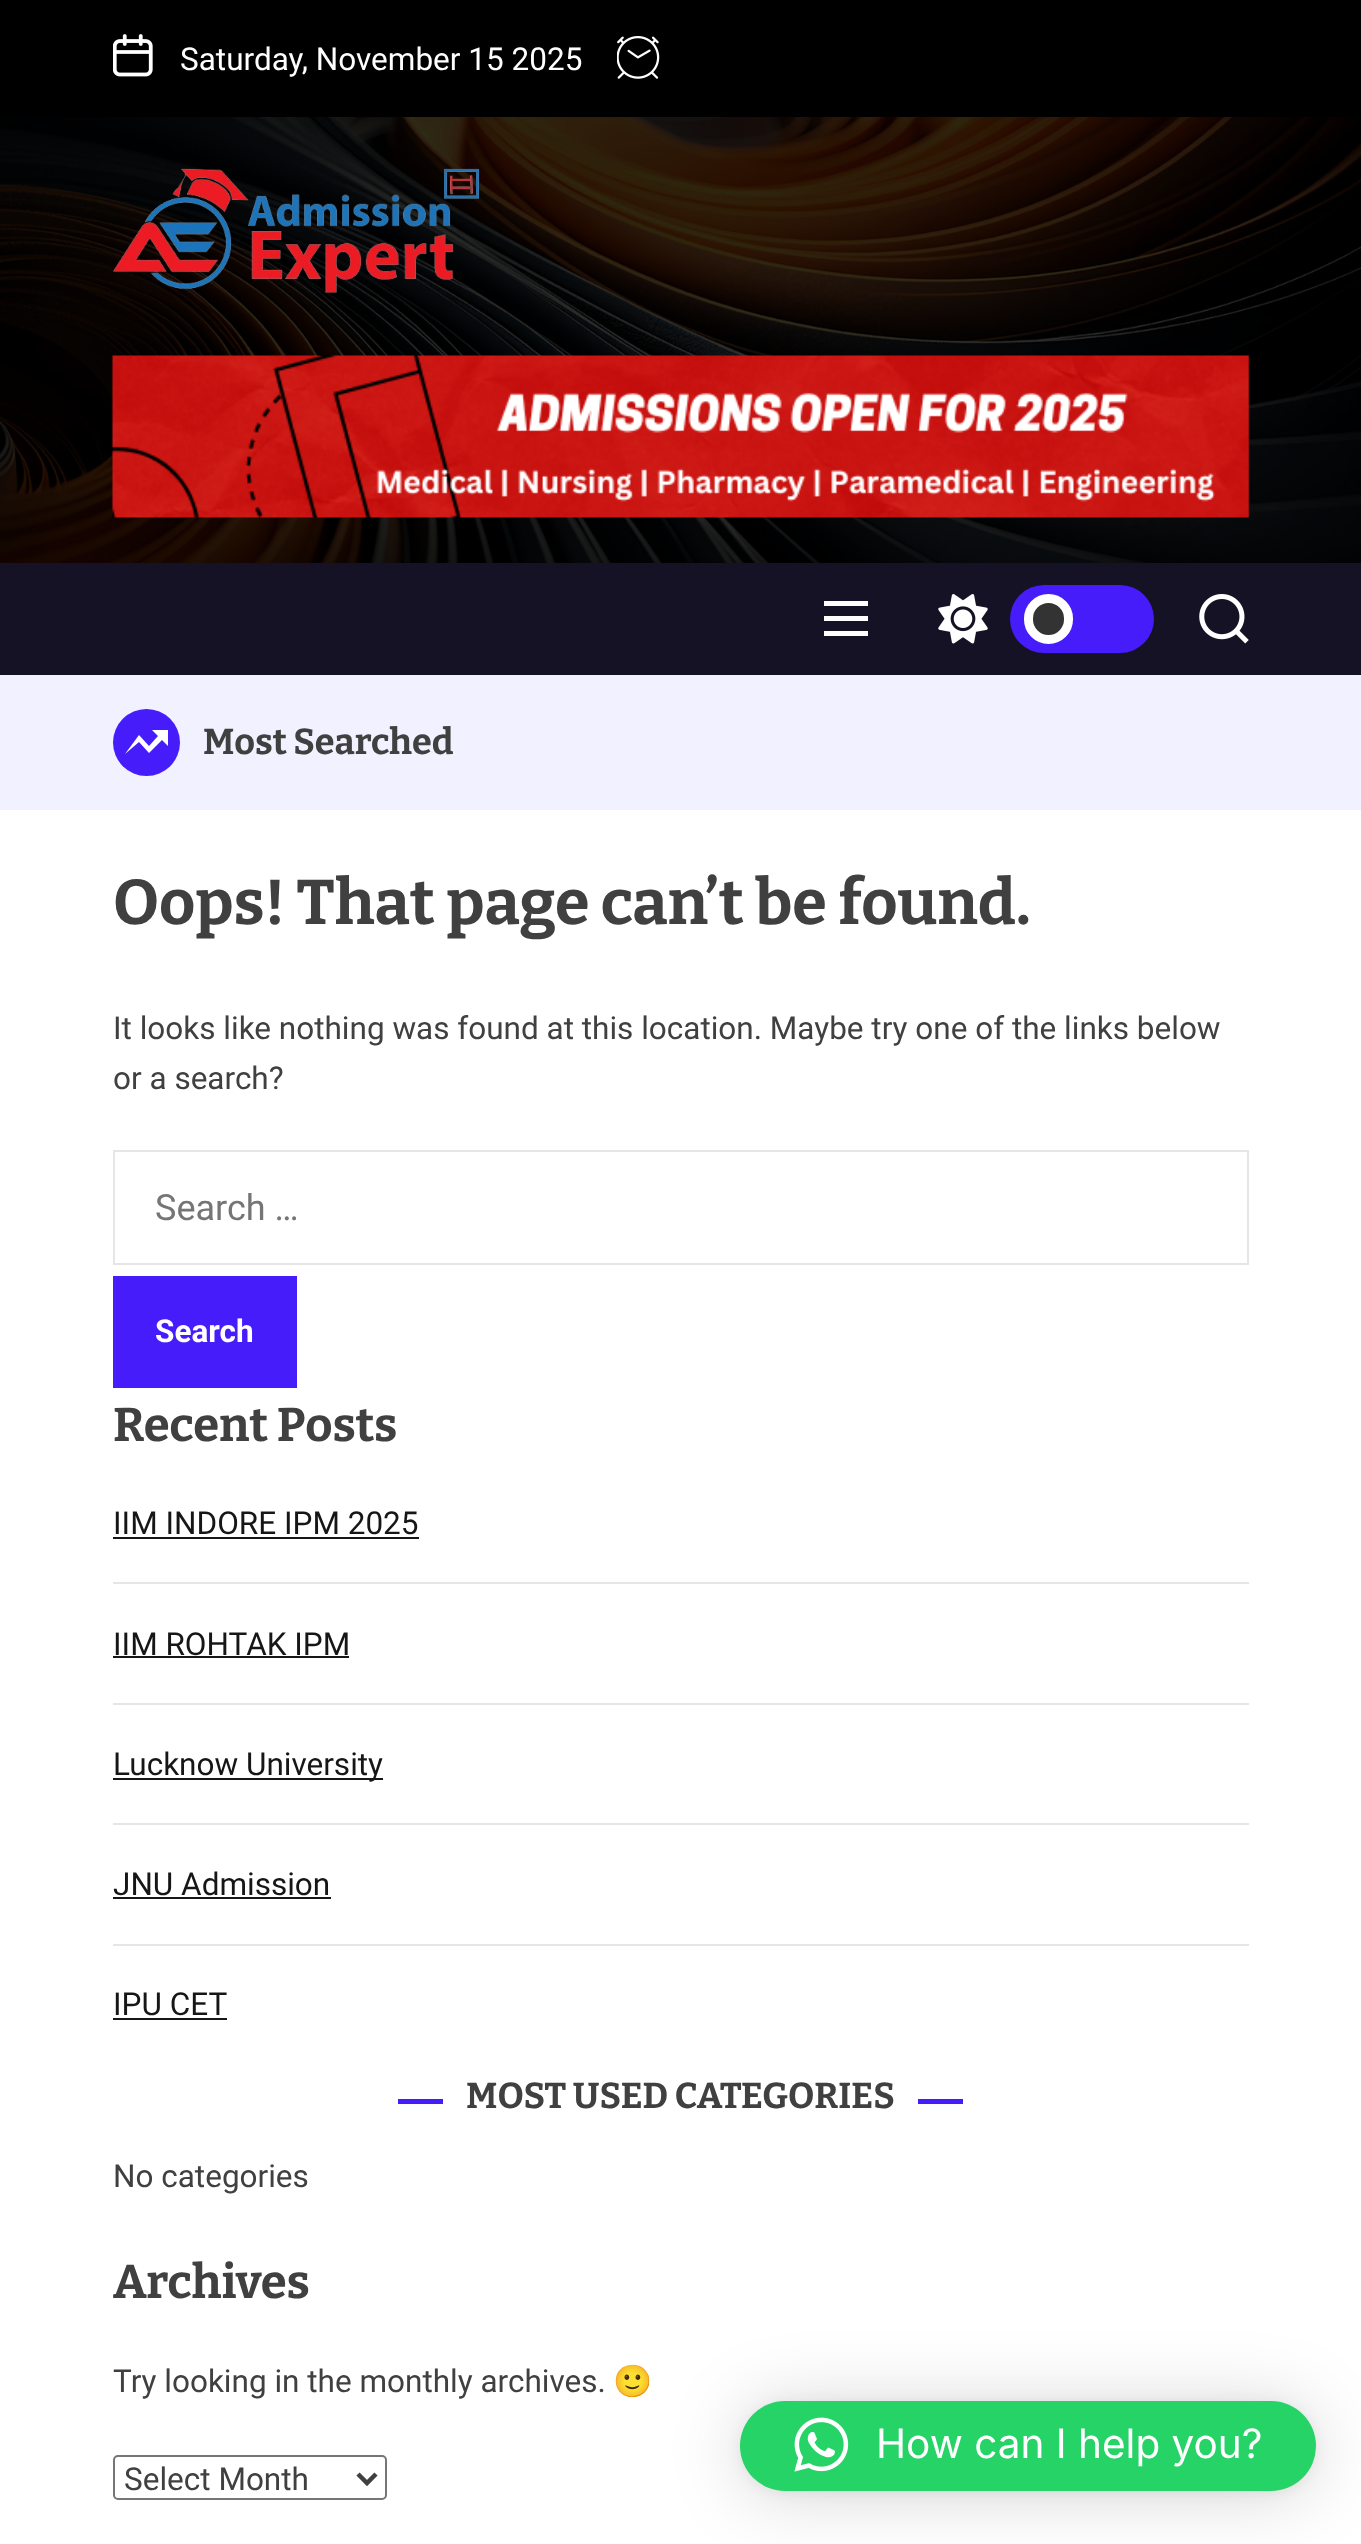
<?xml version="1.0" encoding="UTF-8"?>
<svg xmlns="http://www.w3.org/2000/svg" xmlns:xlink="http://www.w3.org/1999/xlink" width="1361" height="2544">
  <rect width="100%" height="100%" fill="#ffffff" />
  <rect width="1361" height="117" fill="#000000" />
  <image x="113" y="34" width="40" height="43" xlink:href="image1.png" />
  <image x="617" y="36" width="43" height="43" xlink:href="image2.png" />
  <image x="0" y="117" width="1361" height="446" xlink:href="image3.png" />
  <image x="113" y="168" width="366" height="125" xlink:href="image4.png" />
  <image x="112" y="355" width="1137" height="163" xlink:href="image5.png" />
  <rect y="563" width="1361" height="112" fill="#161225" />
  <path d="M 824 601 v 5 h 44 v -5 z m 0 20 h 44 v -5 h -44 z m 0 15 h 44 v -5 h -44 z" fill="#ffffff" />
  <image x="938" y="594" width="50" height="50" xlink:href="image6.png" />
  <rect x="1010" y="585" width="144" height="68" rx="34" fill="#461cfb" />
  <rect x="1028.5" y="598.5" width="40" height="41" rx="20" fill="#333333" stroke="#ffffff" stroke-width="9" />
  <image x="1199" y="594" width="50" height="50" xlink:href="image7.png" />
  <rect y="675" width="1361" height="135" fill="#f1f1ff" />
  <circle cx="146.5" cy="742.5" r="33.5" fill="#461cfb" />
  <path d="M 155 733 l 3 3 l -9 10 l -10 -11 l -14 19 l 14 -12 l 10 11 l 13 -13 l 6 6 v -16 h -16 z" fill="#ffffff" />
  <rect x="114" y="1151" width="1134" height="113" fill="none" stroke="#e6e6e6" stroke-width="2" />
  <rect x="113" y="1276" width="184" height="112" fill="#461cfb" />
  <rect x="113" y="1582" width="1136" height="2" fill="#e6e6e6" />
  <rect x="113" y="1537" width="306" height="2" fill="#161616" />
  <rect x="113" y="1703" width="1136" height="2" fill="#e6e6e6" />
  <rect x="113" y="1656" width="236" height="2" fill="#161616" />
  <rect x="113" y="1823" width="1136" height="2" fill="#e6e6e6" />
  <rect x="113" y="1778" width="270" height="2" fill="#161616" />
  <rect x="113" y="1944" width="1136" height="2" fill="#e6e6e6" />
  <rect x="113" y="1897" width="218" height="2" fill="#161616" />
  <rect x="113" y="2018" width="114" height="2" fill="#161616" />
  <rect x="398" y="2099" width="45" height="5" fill="#461cfb" />
  <rect x="918" y="2099" width="45" height="5" fill="#461cfb" />
  <rect x="114" y="2456" width="272" height="43" rx="4" fill="none" stroke="#767676" stroke-width="2" />
  <path d="M 358 2474 l 9 9 l 9 -9" fill="none" stroke="#404040" stroke-width="4.5" />
  <rect x="740" y="2405" width="576" height="90" rx="45" fill="#000000" fill-opacity="0.16" filter="blur(36px)" />
  <rect x="740" y="2403" width="576" height="90" rx="45" fill="#000000" fill-opacity="0.06" filter="blur(7px)" />
  <rect x="740" y="2401" width="576" height="90" rx="45" fill="#25d366" />
  <image x="794" y="2417" width="55" height="55" xlink:href="image8.png" />
  <text x="180" y="70" style="font-family: Roboto; font-size: 31.5px; fill: #ffffff">Saturday, November 15 2025</text>
  <text x="203" y="754" style="font-family: Bitter; font-size: 36px; font-weight: bold; fill: #404040">Most Searched</text>
  <text x="113" y="924" style="font-family: Bitter; font-size: 63px; font-weight: bold; fill: #404040">Oops! That page can’t be found.</text>
  <text x="113" y="1039" style="font-family: Roboto; font-size: 31.5px; fill: #404040">It looks like nothing was found at this location. Maybe try one of the links below</text>
  <text x="113" y="1089" style="font-family: Roboto; font-size: 31.5px; fill: #404040">or a search?</text>
  <text x="155" y="1220" style="font-family: Roboto; font-size: 36px; fill: #757575">Search …</text>
  <text x="155" y="1342" style="font-family: Roboto; font-size: 31.5px; font-weight: bold; fill: #ffffff">Search</text>
  <text x="113" y="1441" style="font-family: Bitter; font-size: 47.25px; font-weight: bold; fill: #404040">Recent Posts</text>
  <text x="113" y="1534" style="font-family: Roboto; font-size: 31.5px; fill: #161616">IIM INDORE IPM 2025</text>
  <text x="113" y="1655" style="font-family: Roboto; font-size: 31.5px; fill: #161616">IIM ROHTAK IPM</text>
  <text x="113" y="1775" style="font-family: Roboto; font-size: 31.5px; fill: #161616">Lucknow University</text>
  <text x="113" y="1895" style="font-family: Roboto; font-size: 31.5px; fill: #161616">JNU Admission</text>
  <text x="113" y="2015" style="font-family: Roboto; font-size: 31.5px; fill: #161616">IPU CET</text>
  <text x="466" y="2108" style="font-family: Bitter; font-size: 36px; font-weight: bold; fill: #404040">MOST USED CATEGORIES</text>
  <text x="113" y="2187" style="font-family: Roboto; font-size: 31.5px; fill: #404040">No categories</text>
  <text x="113" y="2298" style="font-family: Bitter; font-size: 47.25px; font-weight: bold; fill: #404040">Archives</text>
  <text x="113" y="2392" style="font-family: Roboto; font-size: 31.5px; fill: #404040">Try looking in the monthly archives.</text>
  <text x="613" y="2392" style="font-family: Noto Color Emoji; font-size: 31.5px; fill: #404040">🙂</text>
  <text x="124" y="2490" style="font-family: Roboto; font-size: 31.5px; fill: #404040">Select Month</text>
  <text x="876" y="2458" style="font-family: Inter; font-size: 40.5px; fill: #ffffff">How can I help you?</text>
</svg>
